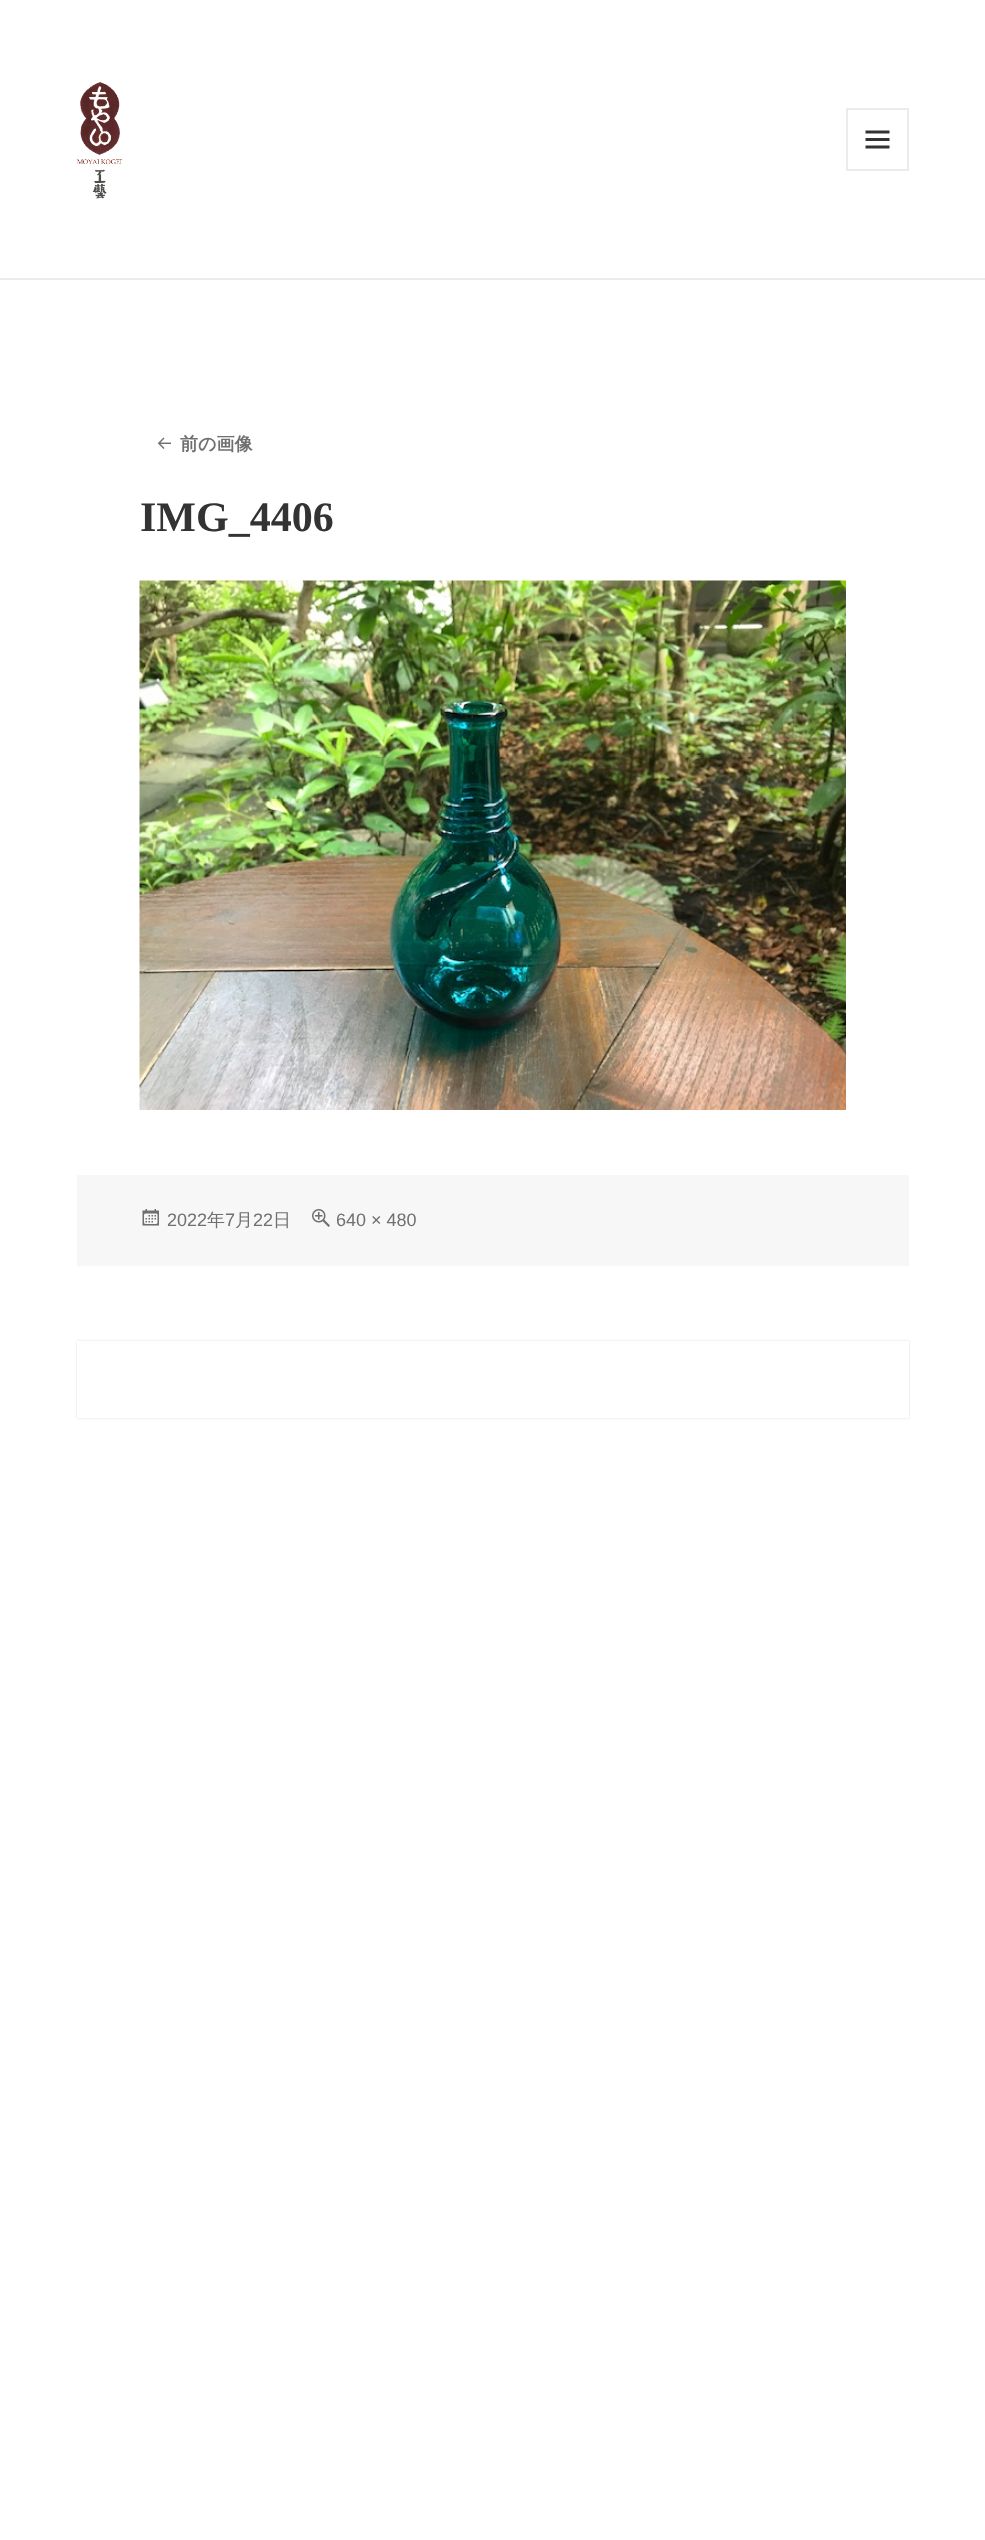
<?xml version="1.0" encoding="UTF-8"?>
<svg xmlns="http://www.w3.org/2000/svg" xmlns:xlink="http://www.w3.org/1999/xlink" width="985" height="2540">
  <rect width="100%" height="100%" fill="#ffffff" />
  <rect y="278" width="985" height="2" fill="#ebebeb" />
  <image x="77" y="82" width="45" height="117" xlink:href="image1.png" />
  <rect x="847" y="109" width="61" height="61" fill="none" stroke="#ebebeb" stroke-width="2" />
  <image x="865" y="130" width="25" height="19" xlink:href="image2.png" />
  <image x="157" y="437" width="14" height="12" xlink:href="image3.png" />
  <image x="139" y="580" width="707" height="530" xlink:href="image4.png" />
  <rect x="77" y="1175" width="832" height="91" fill="#f7f7f7" />
  <image x="142" y="1209" width="17" height="17" xlink:href="image5.png" />
  <image x="312" y="1209" width="18" height="18" xlink:href="image6.png" />
  <rect x="77" y="1341" width="832" height="77" fill="#000000" fill-opacity="0.15" filter="blur(1px)" />
  <rect x="77" y="1341" width="832" height="77" fill="#ffffff" />
  <text x="180" y="450" style="font-family: WenQuanYi Zen Hei; font-size: 18px; font-weight: bold; fill: #707070">前の画像</text>
  <text x="140" y="531" style="font-family: Liberation Serif; font-size: 42px; font-weight: bold; fill: #333333">IMG_4406</text>
  <text x="167" y="1226" style="font-family: Liberation Sans; font-size: 18px; fill: #707070">2022</text>
  <text x="207" y="1226" style="font-family: WenQuanYi Zen Hei; font-size: 18px; font-weight: 500; fill: #707070">年</text>
  <text x="225" y="1226" style="font-family: Liberation Sans; font-size: 18px; fill: #707070">7</text>
  <text x="235" y="1226" style="font-family: WenQuanYi Zen Hei; font-size: 18px; font-weight: 500; fill: #707070">月</text>
  <text x="253" y="1226" style="font-family: Liberation Sans; font-size: 18px; fill: #707070">22</text>
  <text x="273" y="1226" style="font-family: WenQuanYi Zen Hei; font-size: 18px; font-weight: 500; fill: #707070">日</text>
  <text x="336" y="1226" style="font-family: Liberation Sans; font-size: 18px; fill: #707070">640 × 480</text>
</svg>
